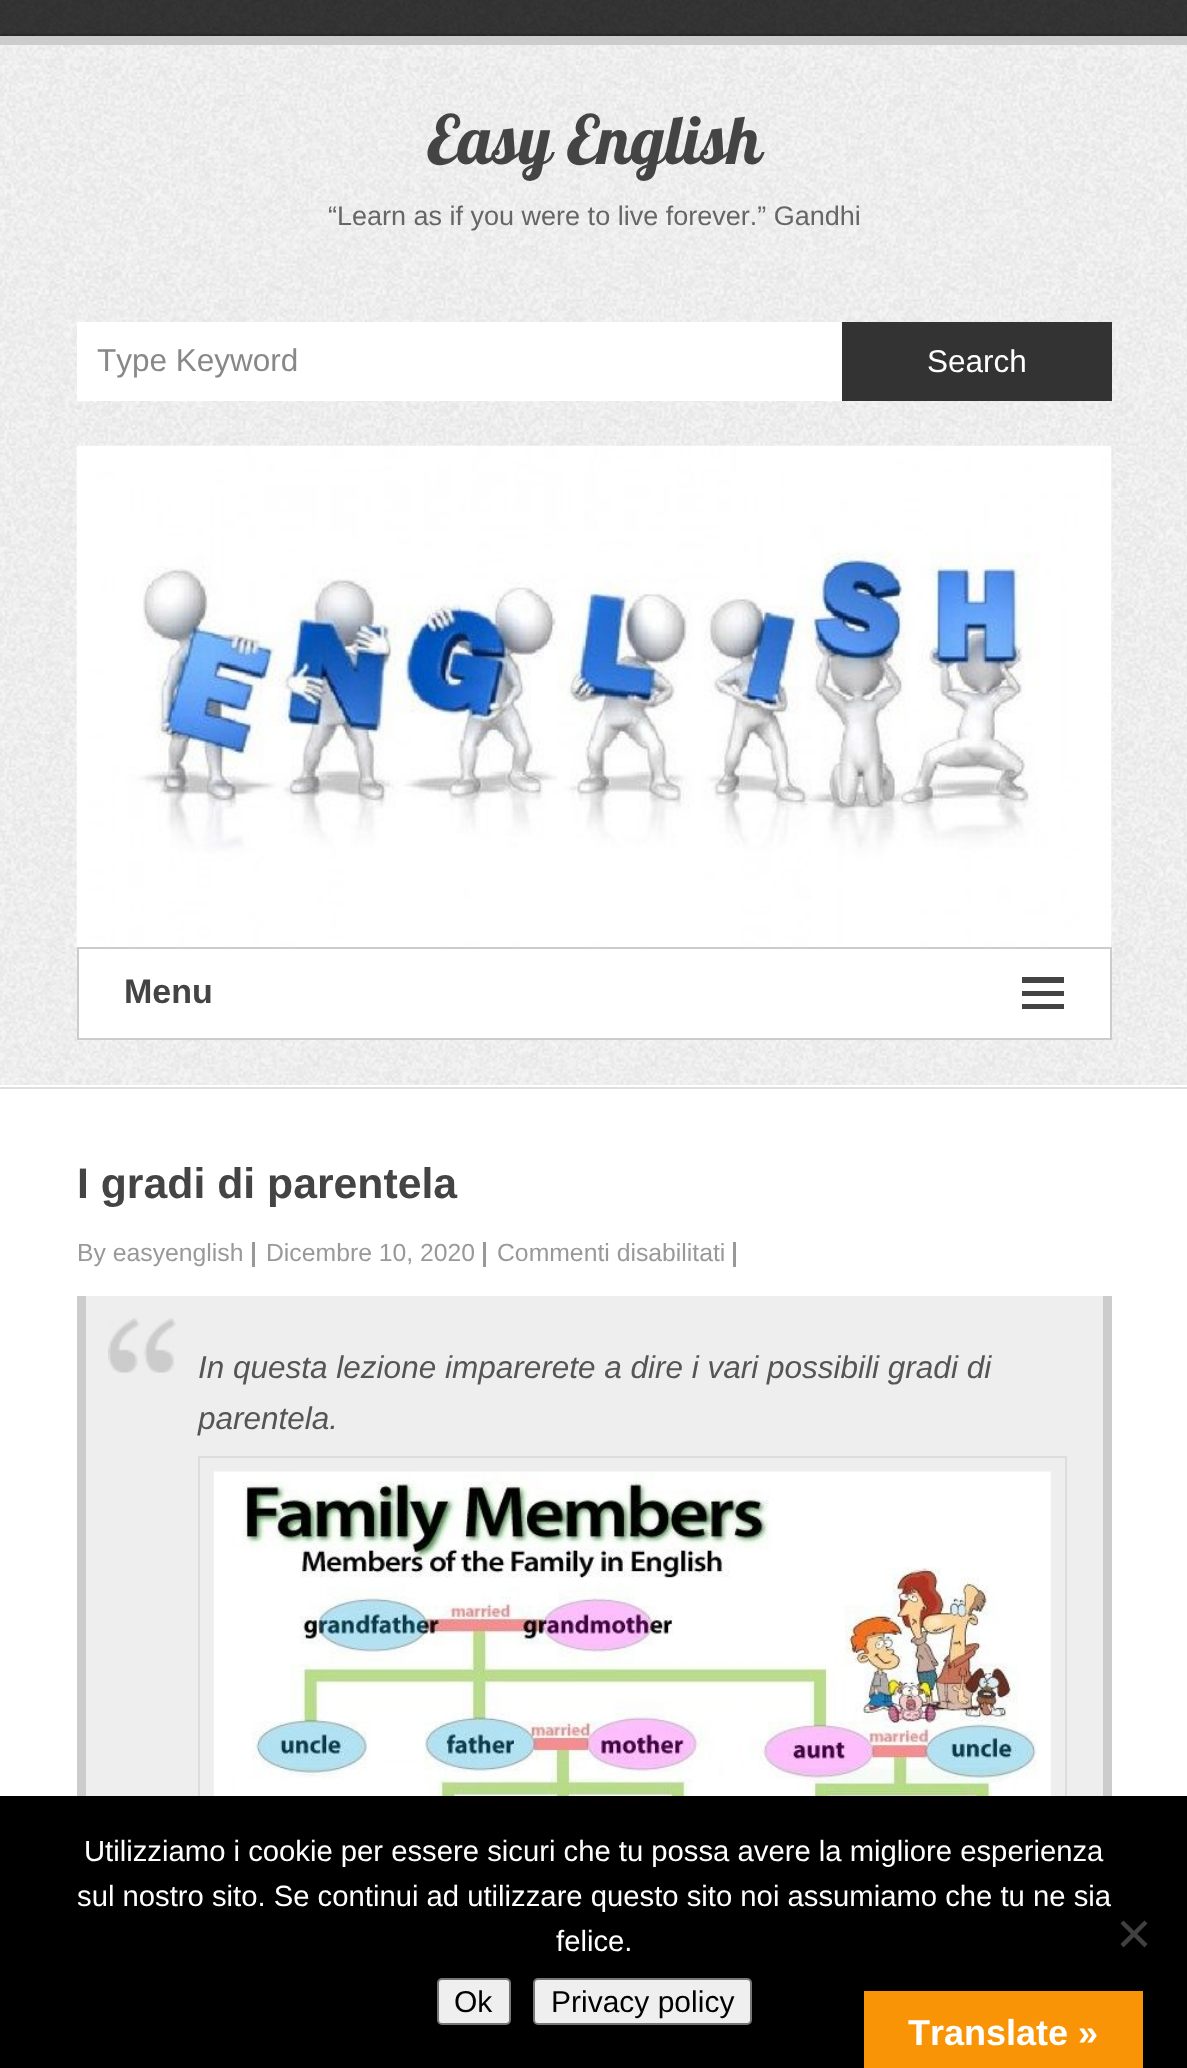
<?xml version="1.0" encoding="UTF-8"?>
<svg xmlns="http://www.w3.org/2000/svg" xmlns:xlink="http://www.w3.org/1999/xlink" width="1187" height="2068">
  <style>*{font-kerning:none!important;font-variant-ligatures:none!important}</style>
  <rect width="100%" height="100%" fill="#ffffff" />
  <image x="0" y="45" width="1187" height="1040" xlink:href="image1.png" />
  <rect y="1087" width="1187" height="2" fill="#dfdfdf" />
  <image x="0" y="0" width="1187" height="36" xlink:href="image2.png" />
  <rect y="36" width="1187" height="9" fill="#cccccc" />
  <rect x="77" y="322" width="765" height="79" fill="#ffffff" />
  <rect x="842" y="322" width="270" height="79" fill="#333333" />
  <image x="76" y="445" width="1036" height="502" xlink:href="image3.png" />
  <rect x="78" y="948" width="1033" height="91" fill="#ffffff" stroke="#cccccc" stroke-width="2" />
  <path d="M 1022 1009 v -5 h 42 v 5 z m 0 -32 h 42 v 6 h -42 z m 0 19 v -5 h 42 v 5 z" fill="#444444" />
  <rect x="252" y="1242" width="3" height="25" fill="#999999" />
  <rect x="483" y="1242" width="3" height="25" fill="#999999" />
  <rect x="733" y="1242" width="3" height="25" fill="#999999" />
  <rect x="86" y="1296" width="1017" height="500" fill="#eeeeee" />
  <image x="108" y="1318" width="68" height="55" xlink:href="image4.png" />
  <rect x="1103" y="1296" width="9" height="500" fill="#cccccc" />
  <rect x="77" y="1296" width="9" height="500" fill="#cccccc" />
  <rect x="199" y="1457" width="867" height="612" fill="none" stroke="#dddddd" stroke-width="2" />
  <image x="213" y="1471" width="838" height="325" xlink:href="image5.png" />
  <rect y="1796" width="1187" height="272" fill="#000000" />
  <path d="M 1144.5 1920.5 l 3 3 l -24 24 l -3 -3.5 z" fill="#404040" />
  <path d="M 1120.5 1923.5 l 3 -3 l 24 23.5 l -3 3.5 z" fill="#404040" />
  <rect x="438" y="1979" width="72" height="45" rx="4" fill="#efefef" stroke="#767676" stroke-width="2" />
  <rect x="534" y="1979" width="217" height="45" rx="4" fill="#efefef" stroke="#767676" stroke-width="2" />
  <rect x="864" y="1991" width="279" height="77" fill="#f89406" />
  <text x="427" y="164" style="font-family: Lobster; font-size: 67.5px; fill: #444444">Easy English</text>
  <text x="328" y="225" style="font-family: Liberation Sans; font-size: 27px; fill: #666666">“Learn as if you were to live forever.” Gandhi</text>
  <text x="97" y="371" style="font-family: Liberation Sans; font-size: 31.5px; fill: #888888">Type Keyword</text>
  <text x="927" y="372" style="font-family: Liberation Sans; font-size: 31.5px; fill: #ffffff">Search</text>
  <text x="124" y="1003" style="font-family: Liberation Sans; font-size: 34px; font-weight: bold; fill: #444444">Menu</text>
  <text x="77" y="1198" style="font-family: Liberation Sans; font-size: 42.75px; font-weight: bold; fill: #444444">I gradi di parentela</text>
  <text x="77" y="1261" style="font-family: Liberation Sans; font-size: 24.75px; fill: #999999">By easyenglish</text>
  <text x="266" y="1261" style="font-family: Liberation Sans; font-size: 24.75px; fill: #999999">Dicembre 10, 2020</text>
  <text x="497" y="1261" style="font-family: Liberation Sans; font-size: 24.75px; fill: #999999">Commenti disabilitati</text>
  <text x="198" y="1378" style="font-family: Liberation Sans; font-size: 31.5px; font-style: italic; fill: #555555">In questa lezione imparerete a dire i vari possibili gradi di</text>
  <text x="198" y="1429" style="font-family: Liberation Sans; font-size: 31.5px; font-style: italic; fill: #555555">parentela.</text>
  <text x="84" y="1861" style="font-family: Liberation Sans; font-size: 29.25px; fill: #ffffff">Utilizziamo i cookie per essere sicuri che tu possa avere la migliore esperienza</text>
  <text x="77" y="1906" style="font-family: Liberation Sans; font-size: 29.25px; fill: #ffffff">sul nostro sito. Se continui ad utilizzare questo sito noi assumiamo che tu ne sia</text>
  <text x="556" y="1951" style="font-family: Liberation Sans; font-size: 29.25px; fill: #ffffff">felice.</text>
  <text x="454" y="2012" style="font-family: Liberation Sans; font-size: 30px; fill: #000000">Ok</text>
  <text x="551" y="2012" style="font-family: Liberation Sans; font-size: 30px; fill: #000000">Privacy policy</text>
  <text x="908" y="2045" style="font-family: Liberation Sans; font-size: 36px; font-weight: bold; fill: #ffffff">Translate »</text>
</svg>
